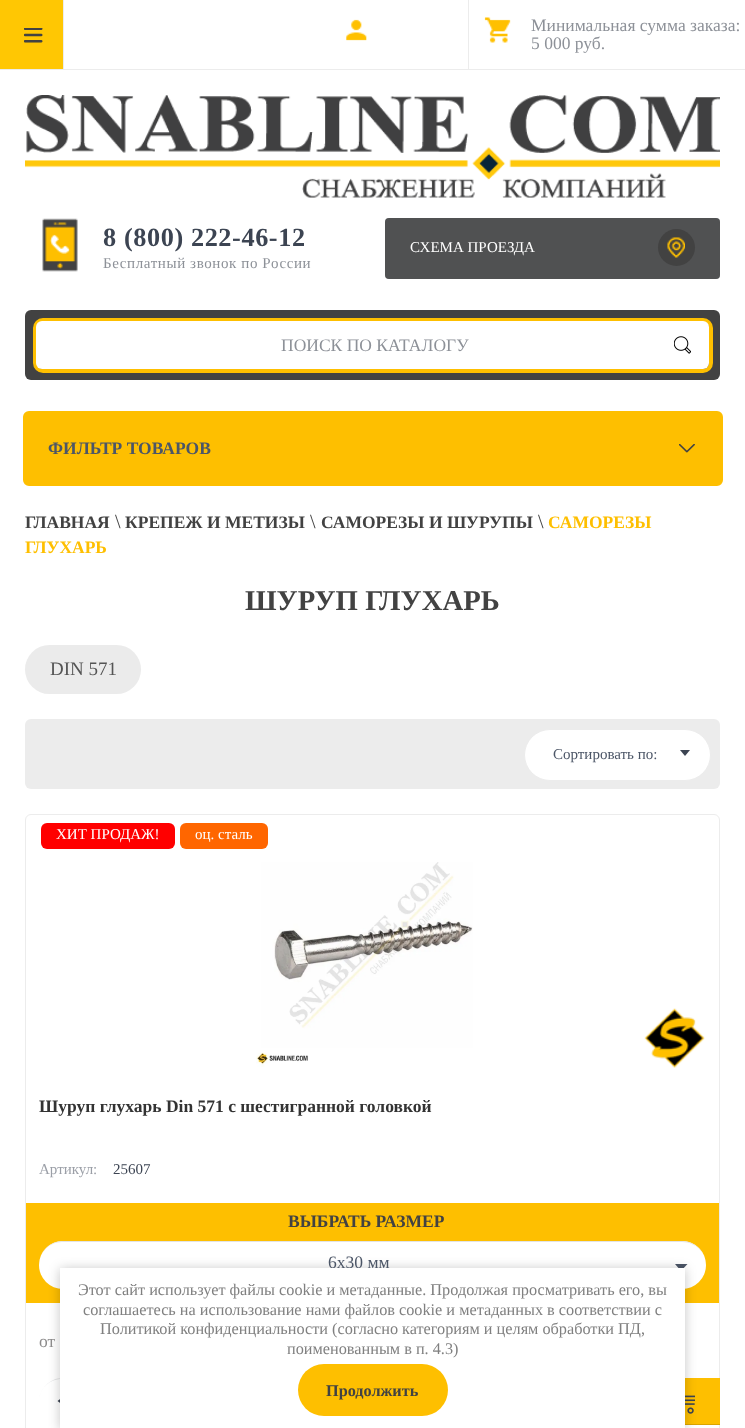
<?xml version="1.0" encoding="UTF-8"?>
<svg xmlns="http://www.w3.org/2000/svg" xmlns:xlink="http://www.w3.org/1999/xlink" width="745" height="1428">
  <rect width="100%" height="100%" fill="#ffffff" />
  <rect y="69" width="745" height="1" fill="#ececec" />
  <rect width="63" height="69" fill="#ffc703" />
  <image x="24" y="28" width="19" height="15" xlink:href="image1.png" />
  <rect x="63" width="1" height="69" fill="#ececec" />
  <rect x="468" width="1" height="69" fill="#ececec" />
  <image x="346" y="19" width="21" height="22" xlink:href="image2.png" />
  <image x="484" y="17" width="27" height="26" xlink:href="image3.png" />
  <image x="25" y="95" width="695" height="103" xlink:href="image4.png" />
  <image x="42" y="218" width="36" height="54" xlink:href="image5.png" />
  <rect x="385" y="218" width="335" height="61" rx="4" fill="#424242" />
  <rect x="385" y="218" width="335" height="61" rx="4" fill="#8d9198" fill-opacity="0.2" />
  <circle cx="676.5" cy="247.5" r="18.5" fill="#424242" />
  <image x="667" y="237" width="18" height="21" xlink:href="image6.png" />
  <rect x="25" y="310" width="695" height="70" rx="6" fill="#424242" />
  <rect x="35" y="320" width="676" height="51" rx="8" fill="none" stroke="#febf00" stroke-width="4" />
  <rect x="36" y="321" width="673" height="48" rx="6" fill="#ffffff" />
  <image x="674" y="336" width="17" height="18" xlink:href="image7.png" />
  <rect x="24.5" y="412.5" width="697" height="72" rx="4.5" fill="none" stroke="#febf00" stroke-width="3" />
  <rect x="26" y="414" width="694" height="69" fill="#febf00" />
  <image x="679" y="444" width="16" height="9" xlink:href="image8.png" />
  <rect x="25" y="645" width="116" height="49" rx="24.5" fill="#ebebeb" />
  <rect x="25" y="719" width="695" height="70" rx="6" fill="#ececec" />
  <rect x="524.5" y="729.5" width="186" height="51" rx="25.5" fill="#ffffff" stroke="#ececec" />
  <path d="M 680 750 h 10 l -5 6 z" fill="#3c4452" />
  <rect x="25.5" y="814.5" width="694" height="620" rx="5.5" fill="none" stroke="#ececec" />
  <rect x="41" y="823" width="134" height="26" rx="6" fill="#ff0000" />
  <rect x="180" y="823" width="88" height="26" rx="6" fill="#ff6600" />
  <image x="256" y="862" width="217" height="205" xlink:href="image9.png" />
  <image x="644" y="1008" width="61" height="60" xlink:href="image10.png" />
  <rect x="26" y="1203" width="693" height="100" fill="#febf00" />
  <rect x="39" y="1241" width="667" height="48" rx="24" fill="#ffffff" />
  <path d="M 62 1242 h 620 c 14 0 24 11 24 23 c 0 -13 -11 -24 -24 -24 h -619 c -13 0 -24 11 -24 24 c 0 -12 10 -23 23 -23 z" fill="#e3e4e5" />
  <path d="M 675 1264 h 12.5 l -6.5 7 z" fill="#4c5667" />
  <path d="M 62 1379 h 83 c 13 0 24 10 24 23 c 0 -13 -11 -24 -23 -24 h -84 c -12 0 -23 11 -23 24 c 0 -13 10 -23 23 -23 z" fill="#e3e4e5" />
  <path d="M 64 1396 v 10 l -6.5 -5 z" fill="#3c4452" />
  <rect x="685" y="1378" width="35" height="47" fill="#febf00" />
  <path d="M 619 1401 v 1 c 0 12 11 23 23 23 h 78 v -1 h -78 c -13 0 -23 -11 -23 -23 z" fill="#000000" fill-opacity="0.14" />
  <image x="685" y="1395" width="10" height="19" xlink:href="image11.png" />
  <rect x="60" y="1269" width="625" height="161" fill="#000000" fill-opacity="0.23" filter="blur(6px)" />
  <text x="531" y="31" style="font-family: Liberation Serif; font-size: 17.5px; fill: #8d9198">Минимальная сумма заказа:</text>
  <text x="531" y="49" style="font-family: Liberation Serif; font-size: 17.5px; fill: #8d9198">5 000 руб.</text>
  <text x="103" y="246" style="font-family: Liberation Serif; font-size: 26.25px; font-weight: bold; letter-spacing: 0.6px; fill: #3c4452">8 (800) 222-46-12</text>
  <text x="103" y="268" style="font-family: Liberation Serif; font-size: 15px; letter-spacing: 0.6px; fill: #8d9198">Бесплатный звонок по России</text>
  <text x="410" y="252" style="font-family: Liberation Serif; font-size: 15px; fill: #ffffff">СХЕМА ПРОЕЗДА</text>
  <text x="281" y="351" style="font-family: Liberation Serif; font-size: 17.5px; fill: #8d9198">ПОИСК ПО КАТАЛОГУ</text>
  <text x="48" y="454" style="font-family: Liberation Serif; font-size: 17.5px; font-weight: bold; fill: #4c5667">ФИЛЬТР ТОВАРОВ</text>
  <text x="25" y="528" style="font-family: Liberation Serif; font-size: 17.5px; font-weight: bold; fill: #424242">ГЛАВНАЯ</text>
  <text x="115" y="528" style="font-family: Liberation Serif; font-size: 20px; fill: #424242">\</text>
  <text x="125" y="528" style="font-family: Liberation Serif; font-size: 17.5px; font-weight: bold; fill: #424242">КРЕПЕЖ И МЕТИЗЫ</text>
  <text x="310" y="528" style="font-family: Liberation Serif; font-size: 20px; fill: #424242">\</text>
  <text x="321" y="528" style="font-family: Liberation Serif; font-size: 17.5px; font-weight: bold; fill: #424242">САМОРЕЗЫ И ШУРУПЫ</text>
  <text x="538" y="528" style="font-family: Liberation Serif; font-size: 20px; fill: #424242">\</text>
  <text x="548" y="528" style="font-family: Liberation Serif; font-size: 17.5px; font-weight: bold; fill: #febf00">САМОРЕЗЫ</text>
  <text x="25" y="553" style="font-family: Liberation Serif; font-size: 17.5px; font-weight: bold; fill: #febf00">ГЛУХАРЬ</text>
  <text x="245" y="610" style="font-family: Liberation Serif; font-size: 28.75px; font-weight: bold; fill: #424242">ШУРУП ГЛУХАРЬ</text>
  <text x="50" y="675" style="font-family: Liberation Serif; font-size: 19px; fill: #555555">DIN 571</text>
  <text x="553" y="759" style="font-family: Liberation Serif; font-size: 15px; fill: #4c5667">Сортировать по:</text>
  <text x="56" y="839" style="font-family: Liberation Serif; font-size: 15px; fill: #ffffff">ХИТ ПРОДАЖ!</text>
  <text x="195" y="839" style="font-family: Liberation Serif; font-size: 15px; fill: #ffffff">оц. сталь</text>
  <text x="39" y="1112" style="font-family: Liberation Serif; font-size: 17.5px; font-weight: bold; fill: #333333">Шуруп глухарь Din 571 с шестигранной головкой</text>
  <text x="39" y="1174" style="font-family: Liberation Serif; font-size: 15px; fill: #9b9fa7">Артикул:</text>
  <text x="113" y="1174" style="font-family: Liberation Serif; font-size: 15px; fill: #3c4452">25607</text>
  <text x="288" y="1227" style="font-family: Liberation Serif; font-size: 17.5px; font-weight: bold; fill: #424242">ВЫБРАТЬ РАЗМЕР</text>
  <text x="328" y="1268" style="font-family: Liberation Serif; font-size: 17.5px; fill: #4c5667">6x30 мм</text>
  <text x="39" y="1347" style="font-family: Liberation Serif; font-size: 17.5px; fill: #8c8b8b">от</text>
  <rect x="60" y="1268" width="625" height="160" fill="#ffffff" />
  <text x="78" y="1295" style="font-family: Liberation Serif; font-size: 16.25px; fill: #808080">Этот сайт использует файлы cookie и метаданные. Продолжая просматривать его, вы</text>
  <text x="83" y="1315" style="font-family: Liberation Serif; font-size: 16.25px; fill: #808080">соглашаетесь на использование нами файлов cookie и метаданных в соответствии с</text>
  <text x="100" y="1334" style="font-family: Liberation Serif; font-size: 16.25px; fill: #808080">Политикой конфиденциальности (согласно категориям и целям обработки ПД,</text>
  <text x="287" y="1354" style="font-family: Liberation Serif; font-size: 16.25px; fill: #808080">поименованным в п. 4.3)</text>
  <rect x="298" y="1364" width="150" height="52" rx="26" fill="#febf00" />
  <text x="326" y="1396" style="font-family: Liberation Serif; font-size: 16.25px; font-weight: bold; fill: #424242">Продолжить</text>
</svg>
